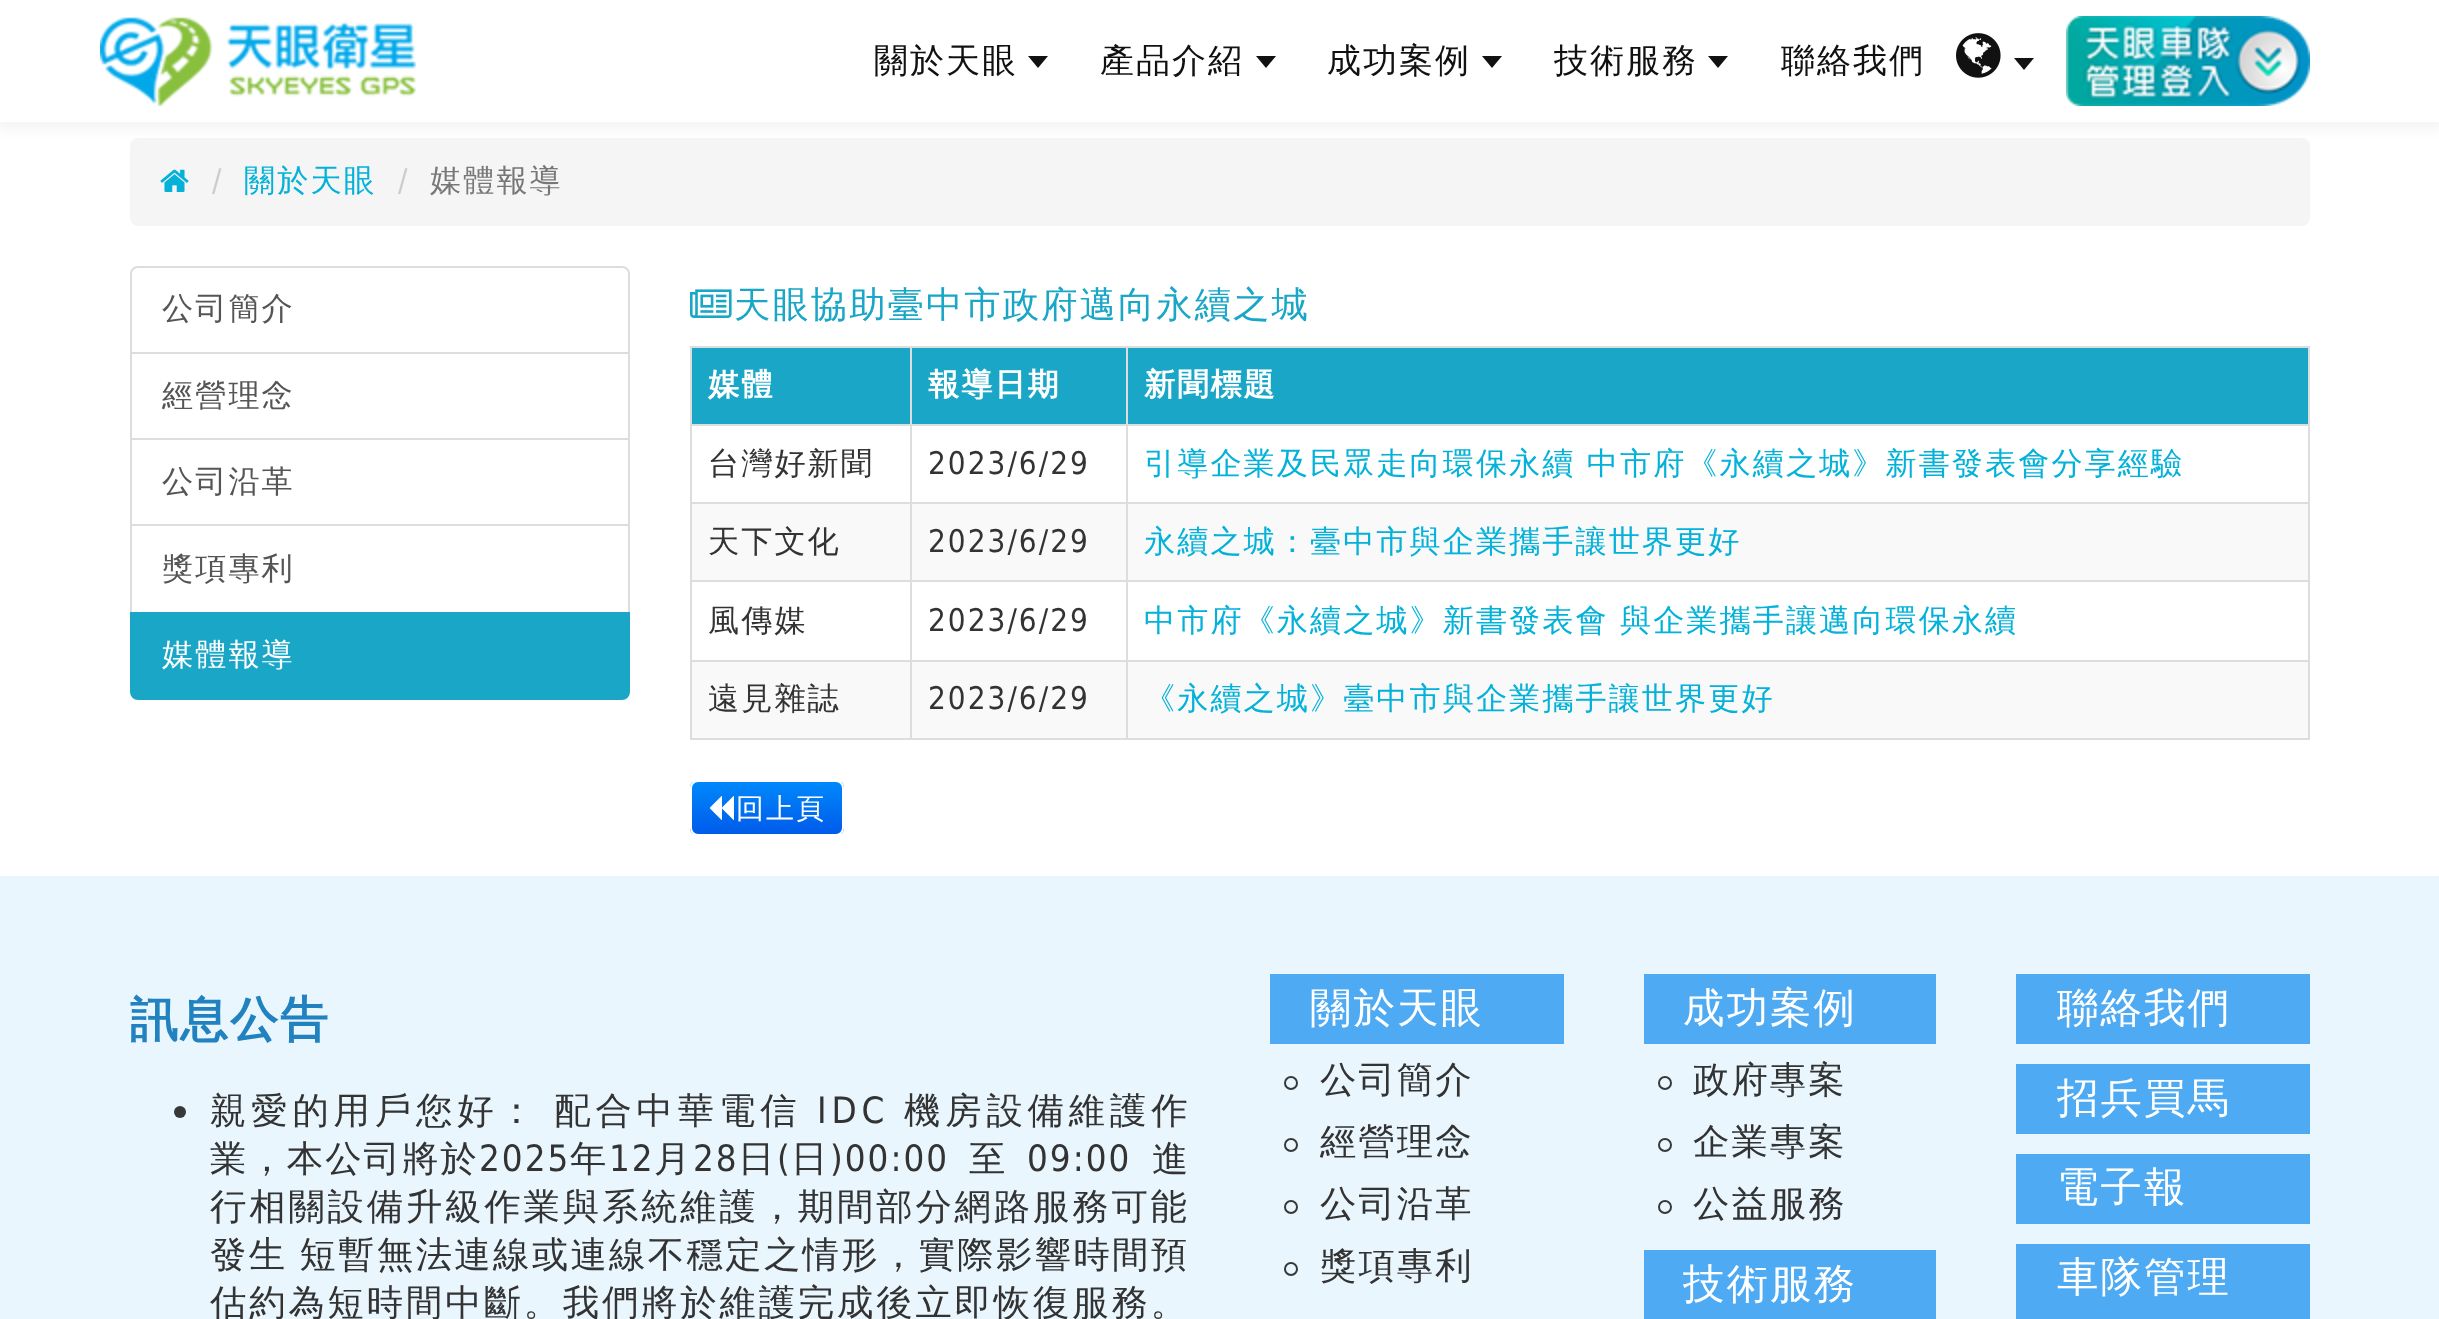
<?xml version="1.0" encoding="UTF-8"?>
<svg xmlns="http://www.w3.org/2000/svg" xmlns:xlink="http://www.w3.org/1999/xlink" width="2439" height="1319">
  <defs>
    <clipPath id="clip1"><rect x="690" y="780" width="154" height="56" rx="8" /></clipPath>
    <linearGradient id="g1" gradientUnits="userSpaceOnUse" x1="767" y1="782" x2="767" y2="834"><stop offset="0" stop-color="#0088fb" /><stop offset="1" stop-color="#005bea" /></linearGradient>
  </defs>
  <rect width="100%" height="100%" fill="#ffffff" />
  <rect x="130" y="138" width="2180" height="88" rx="8" fill="#f5f5f5" />
  <rect x="-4" width="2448" height="130" fill="#000000" fill-opacity="0.04" filter="blur(6px)" />
  <rect width="2439" height="122" fill="#ffffff" />
  <image x="100" y="17" width="316" height="89" xlink:href="image1.png" />
  <path d="M 1028 56 h 20 l -10 12 z" fill="#111111" />
  <path d="M 1256 56 h 20 l -10 12 z" fill="#111111" />
  <path d="M 1482 56 h 20 l -10 12 z" fill="#111111" />
  <path d="M 1708 56 h 20 l -10 12 z" fill="#111111" />
  <image x="1956" y="33" width="45" height="45" xlink:href="image2.png" />
  <path d="M 2014 58 h 20 l -10 12 z" fill="#111111" />
  <image x="2066" y="16" width="244" height="90" xlink:href="image3.png" />
  <image x="160" y="169" width="29" height="23" xlink:href="image4.png" />
  <path d="M 138 267 h 484 c 4 0 7 3 7 7 v 79 h -498 v -79 c 0 -4 3 -7 7 -7 z" fill="none" stroke="#dddddd" stroke-width="2" />
  <rect x="131" y="353" width="498" height="86" fill="none" stroke="#dddddd" stroke-width="2" />
  <rect x="131" y="439" width="498" height="86" fill="none" stroke="#dddddd" stroke-width="2" />
  <rect x="131" y="525" width="498" height="88" fill="none" stroke="#dddddd" stroke-width="2" />
  <path d="M 131 613 h 498 v 79 c 0 4 -3 7 -7 7 h -484 c -4 0 -7 -3 -7 -7 z" fill="#19a6c7" stroke="#19a6c7" stroke-width="2" />
  <image x="690" y="289" width="42" height="29" xlink:href="image5.png" />
  <rect x="690" y="346" width="1620" height="2" fill="#dddddd" />
  <rect x="2308" y="346" width="2" height="394" fill="#dddddd" />
  <rect x="690" y="738" width="1620" height="2" fill="#dddddd" />
  <rect x="690" y="346" width="2" height="394" fill="#dddddd" />
  <rect x="692" y="348" width="218" height="76" fill="#19a6c7" />
  <rect x="912" y="348" width="214" height="76" fill="#19a6c7" />
  <rect x="1126" y="424" width="1184" height="2" fill="#dddddd" />
  <rect x="1126" y="502" width="1184" height="2" fill="#dddddd" />
  <rect x="692" y="504" width="1616" height="76" fill="#f9f9f9" />
  <rect x="1126" y="580" width="1184" height="2" fill="#dddddd" />
  <rect x="1126" y="660" width="1184" height="2" fill="#dddddd" />
  <rect x="692" y="662" width="1616" height="76" fill="#f9f9f9" />
  <rect x="1126" y="660" width="2" height="80" fill="#dddddd" />
  <rect x="910" y="660" width="218" height="2" fill="#dddddd" />
  <rect x="1126" y="580" width="2" height="82" fill="#dddddd" />
  <rect x="910" y="580" width="218" height="2" fill="#dddddd" />
  <rect x="1126" y="502" width="2" height="80" fill="#dddddd" />
  <rect x="910" y="502" width="218" height="2" fill="#dddddd" />
  <rect x="1126" y="424" width="2" height="80" fill="#dddddd" />
  <rect x="910" y="424" width="218" height="2" fill="#dddddd" />
  <rect x="910" y="660" width="2" height="80" fill="#dddddd" />
  <rect x="690" y="660" width="222" height="2" fill="#dddddd" />
  <rect x="910" y="580" width="2" height="82" fill="#dddddd" />
  <rect x="690" y="580" width="222" height="2" fill="#dddddd" />
  <rect x="910" y="502" width="2" height="80" fill="#dddddd" />
  <rect x="690" y="502" width="222" height="2" fill="#dddddd" />
  <rect x="910" y="424" width="2" height="80" fill="#dddddd" />
  <rect x="690" y="424" width="222" height="2" fill="#dddddd" />
  <rect x="910" y="346" width="2" height="80" fill="#dddddd" />
  <rect x="1128" y="348" width="1180" height="76" fill="#19a6c7" />
  <rect x="1126" y="346" width="2" height="80" fill="#dddddd" />
  <g clip-path="url(#clip1)">
    <rect x="690" y="782" width="154" height="52" fill="url(#g1)" />
  </g>
  <rect x="691" y="781" width="152" height="54" rx="7" fill="none" stroke="#ffffff" stroke-width="2" />
  <image x="709" y="796" width="25" height="24" xlink:href="image6.png" />
  <rect y="876" width="2439" height="443" fill="#e9f6fd" />
  <circle cx="180" cy="1112" r="6" fill="#383838" />
  <rect x="1270" y="974" width="294" height="70" fill="#4daaf3" />
  <circle cx="1291" cy="1083" r="6" fill="none" stroke="#383838" stroke-width="2" />
  <circle cx="1291" cy="1145" r="6" fill="none" stroke="#383838" stroke-width="2" />
  <circle cx="1291" cy="1207" r="6" fill="none" stroke="#383838" stroke-width="2" />
  <circle cx="1291" cy="1269" r="6" fill="none" stroke="#383838" stroke-width="2" />
  <rect x="1644" y="974" width="292" height="70" fill="#4daaf3" />
  <circle cx="1665" cy="1083" r="6" fill="none" stroke="#383838" stroke-width="2" />
  <circle cx="1665" cy="1145" r="6" fill="none" stroke="#383838" stroke-width="2" />
  <circle cx="1665" cy="1207" r="6" fill="none" stroke="#383838" stroke-width="2" />
  <rect x="1644" y="1250" width="292" height="69" fill="#4daaf3" />
  <rect x="2016" y="974" width="294" height="70" fill="#4daaf3" />
  <rect x="2016" y="1064" width="294" height="70" fill="#4daaf3" />
  <rect x="2016" y="1154" width="294" height="70" fill="#4daaf3" />
  <rect x="2016" y="1244" width="294" height="75" fill="#4daaf3" />
  <text x="874" y="72" style="font-family: WenQuanYi Zen Hei; font-size: 34px; font-weight: 500; letter-spacing: 2px; fill: #111111">關於天眼</text>
  <text x="1100" y="72" style="font-family: WenQuanYi Zen Hei; font-size: 34px; font-weight: 500; letter-spacing: 2px; fill: #111111">產品介紹</text>
  <text x="1327" y="72" style="font-family: WenQuanYi Zen Hei; font-size: 34px; font-weight: 500; letter-spacing: 2px; fill: #111111">成功案例</text>
  <text x="1554" y="72" style="font-family: WenQuanYi Zen Hei; font-size: 34px; font-weight: 500; letter-spacing: 2px; fill: #111111">技術服務</text>
  <text x="1781" y="72" style="font-family: WenQuanYi Zen Hei; font-size: 34px; font-weight: 500; letter-spacing: 2px; fill: #111111">聯絡我們</text>
  <text x="212" y="191" style="font-family: DejaVu Sans; font-size: 31.2px; letter-spacing: 2px; fill: #cccccc">/</text>
  <text x="244" y="191" style="font-family: WenQuanYi Zen Hei; font-size: 31.2px; font-weight: 500; letter-spacing: 2px; fill: #04b2d9">關於天眼</text>
  <text x="398" y="191" style="font-family: DejaVu Sans; font-size: 31.2px; letter-spacing: 2px; fill: #cccccc">/</text>
  <text x="430" y="191" style="font-family: WenQuanYi Zen Hei; font-size: 31.2px; font-weight: 500; letter-spacing: 2px; fill: #777777">媒體報導</text>
  <text x="162" y="319" style="font-family: WenQuanYi Zen Hei; font-size: 31.2px; font-weight: 500; letter-spacing: 2px; fill: #555555">公司簡介</text>
  <text x="162" y="406" style="font-family: WenQuanYi Zen Hei; font-size: 31.2px; font-weight: 500; letter-spacing: 2px; fill: #555555">經營理念</text>
  <text x="162" y="492" style="font-family: WenQuanYi Zen Hei; font-size: 31.2px; font-weight: 500; letter-spacing: 2px; fill: #555555">公司沿革</text>
  <text x="162" y="579" style="font-family: WenQuanYi Zen Hei; font-size: 31.2px; font-weight: 500; letter-spacing: 2px; fill: #555555">獎項專利</text>
  <text x="162" y="665" style="font-family: WenQuanYi Zen Hei; font-size: 31.2px; font-weight: 500; letter-spacing: 2px; fill: #ffffff">媒體報導</text>
  <text x="734" y="317" style="font-family: WenQuanYi Zen Hei; font-size: 36.4px; font-weight: 500; letter-spacing: 2px; fill: #19a6c7">天眼協助臺中市政府邁向永續之城</text>
  <text x="708" y="395" style="font-family: WenQuanYi Zen Hei; font-size: 31.2px; font-weight: bold; letter-spacing: 2px; fill: #ffffff">媒體</text>
  <text x="928" y="395" style="font-family: WenQuanYi Zen Hei; font-size: 31.2px; font-weight: bold; letter-spacing: 2px; fill: #ffffff">報導日期</text>
  <text x="1144" y="395" style="font-family: WenQuanYi Zen Hei; font-size: 31.2px; font-weight: bold; letter-spacing: 2px; fill: #ffffff">新聞標題</text>
  <text x="708" y="474" style="font-family: WenQuanYi Zen Hei; font-size: 31.2px; font-weight: 500; letter-spacing: 2px; fill: #333333">台灣好新聞</text>
  <text x="928" y="474" style="font-family: DejaVu Sans; font-size: 31.2px; letter-spacing: 2px; fill: #333333">2023/6/29</text>
  <text x="1144" y="474" style="font-family: WenQuanYi Zen Hei; font-size: 31.2px; font-weight: 500; letter-spacing: 2px; fill: #04b2d9">引導企業及民眾走向環保永續 中市府《永續之城》新書發表會分享經驗</text>
  <text x="708" y="552" style="font-family: WenQuanYi Zen Hei; font-size: 31.2px; font-weight: 500; letter-spacing: 2px; fill: #333333">天下文化</text>
  <text x="928" y="552" style="font-family: DejaVu Sans; font-size: 31.2px; letter-spacing: 2px; fill: #333333">2023/6/29</text>
  <text x="1144" y="552" style="font-family: WenQuanYi Zen Hei; font-size: 31.2px; font-weight: 500; letter-spacing: 2px; fill: #04b2d9">永續之城：臺中市與企業攜手讓世界更好</text>
  <text x="708" y="631" style="font-family: WenQuanYi Zen Hei; font-size: 31.2px; font-weight: 500; letter-spacing: 2px; fill: #333333">風傳媒</text>
  <text x="928" y="631" style="font-family: DejaVu Sans; font-size: 31.2px; letter-spacing: 2px; fill: #333333">2023/6/29</text>
  <text x="1144" y="631" style="font-family: WenQuanYi Zen Hei; font-size: 31.2px; font-weight: 500; letter-spacing: 2px; fill: #04b2d9">中市府《永續之城》新書發表會 與企業攜手讓邁向環保永續</text>
  <text x="708" y="709" style="font-family: WenQuanYi Zen Hei; font-size: 31.2px; font-weight: 500; letter-spacing: 2px; fill: #333333">遠見雜誌</text>
  <text x="928" y="709" style="font-family: DejaVu Sans; font-size: 31.2px; letter-spacing: 2px; fill: #333333">2023/6/29</text>
  <text x="1144" y="709" style="font-family: WenQuanYi Zen Hei; font-size: 31.2px; font-weight: 500; letter-spacing: 2px; fill: #04b2d9">《永續之城》臺中市與企業攜手讓世界更好</text>
  <text x="736" y="818" style="font-family: WenQuanYi Zen Hei; font-size: 28px; font-weight: 500; letter-spacing: 2px; fill: #ffffff">回上頁</text>
  <text x="130" y="1036" style="font-family: WenQuanYi Zen Hei; font-size: 48px; font-weight: bold; letter-spacing: 2px; fill: #2182bf">訊息公告</text>
  <text x="210" y="1123" word-spacing="-1" style="font-family: WenQuanYi Zen Hei; font-size: 36.4px; font-weight: 500; letter-spacing: 4.8px; fill: #333333">親愛的用戶您好： 配合中華電信</text>
  <text x="817" y="1123" style="font-family: DejaVu Sans; font-size: 36.4px; letter-spacing: 4.8px; fill: #333333">IDC</text>
  <text x="904" y="1123" style="font-family: WenQuanYi Zen Hei; font-size: 36.4px; font-weight: 500; letter-spacing: 4.8px; fill: #333333">機房設備維護作</text>
  <text x="210" y="1171" style="font-family: WenQuanYi Zen Hei; font-size: 36.4px; font-weight: 500; letter-spacing: 2px; fill: #333333">業，本公司將於</text>
  <text x="479" y="1171" style="font-family: DejaVu Sans; font-size: 36.4px; letter-spacing: 2px; fill: #333333">2025</text>
  <text x="570" y="1171" style="font-family: WenQuanYi Zen Hei; font-size: 36.4px; font-weight: 500; letter-spacing: 2px; fill: #333333">年</text>
  <text x="609" y="1171" style="font-family: DejaVu Sans; font-size: 36.4px; letter-spacing: 2px; fill: #333333">12</text>
  <text x="654" y="1171" style="font-family: WenQuanYi Zen Hei; font-size: 36.4px; font-weight: 500; letter-spacing: 2px; fill: #333333">月</text>
  <text x="693" y="1171" style="font-family: DejaVu Sans; font-size: 36.4px; letter-spacing: 2px; fill: #333333">28</text>
  <text x="738" y="1171" style="font-family: WenQuanYi Zen Hei; font-size: 36.4px; font-weight: 500; letter-spacing: 2px; fill: #333333">日</text>
  <text x="777" y="1171" style="font-family: DejaVu Sans; font-size: 36.4px; letter-spacing: 2px; fill: #333333">(</text>
  <text x="791" y="1171" style="font-family: WenQuanYi Zen Hei; font-size: 36.4px; font-weight: 500; letter-spacing: 2px; fill: #333333">日</text>
  <text x="830" y="1171" style="font-family: DejaVu Sans; font-size: 36.4px; letter-spacing: 2px; fill: #333333">)00:00</text>
  <text x="969" y="1171" style="font-family: WenQuanYi Zen Hei; font-size: 36.4px; font-weight: 500; letter-spacing: 2px; fill: #333333">至</text>
  <text x="1027" y="1171" style="font-family: DejaVu Sans; font-size: 36.4px; letter-spacing: 2px; fill: #333333">09:00</text>
  <text x="1152" y="1171" style="font-family: WenQuanYi Zen Hei; font-size: 36.4px; font-weight: 500; letter-spacing: 2px; fill: #333333">進</text>
  <text x="210" y="1219" style="font-family: WenQuanYi Zen Hei; font-size: 36.4px; font-weight: 500; letter-spacing: 2.8px; fill: #333333">行相關設備升級作業與系統維護，期間部分網路服務可能</text>
  <text x="210" y="1267" word-spacing="-1" style="font-family: WenQuanYi Zen Hei; font-size: 36.4px; font-weight: 500; letter-spacing: 2.3px; fill: #333333">發生 短暫無法連線或連線不穩定之情形，實際影響時間預</text>
  <text x="210" y="1315" style="font-family: WenQuanYi Zen Hei; font-size: 36.4px; font-weight: 500; letter-spacing: 2.8px; fill: #333333">估約為短時間中斷。我們將於維護完成後立即恢復服務。</text>
  <text x="1310" y="1022" style="font-family: WenQuanYi Zen Hei; font-size: 41.5px; font-weight: 500; letter-spacing: 2px; fill: #ffffff">關於天眼</text>
  <text x="1320" y="1092" style="font-family: WenQuanYi Zen Hei; font-size: 36.4px; font-weight: 500; letter-spacing: 2px; fill: #333333">公司簡介</text>
  <text x="1320" y="1154" style="font-family: WenQuanYi Zen Hei; font-size: 36.4px; font-weight: 500; letter-spacing: 2px; fill: #333333">經營理念</text>
  <text x="1320" y="1216" style="font-family: WenQuanYi Zen Hei; font-size: 36.4px; font-weight: 500; letter-spacing: 2px; fill: #333333">公司沿革</text>
  <text x="1320" y="1278" style="font-family: WenQuanYi Zen Hei; font-size: 36.4px; font-weight: 500; letter-spacing: 2px; fill: #333333">獎項專利</text>
  <text x="1683" y="1022" style="font-family: WenQuanYi Zen Hei; font-size: 41.5px; font-weight: 500; letter-spacing: 2px; fill: #ffffff">成功案例</text>
  <text x="1693" y="1092" style="font-family: WenQuanYi Zen Hei; font-size: 36.4px; font-weight: 500; letter-spacing: 2px; fill: #333333">政府專案</text>
  <text x="1693" y="1154" style="font-family: WenQuanYi Zen Hei; font-size: 36.4px; font-weight: 500; letter-spacing: 2px; fill: #333333">企業專案</text>
  <text x="1693" y="1216" style="font-family: WenQuanYi Zen Hei; font-size: 36.4px; font-weight: 500; letter-spacing: 2px; fill: #333333">公益服務</text>
  <text x="1683" y="1298" style="font-family: WenQuanYi Zen Hei; font-size: 41.5px; font-weight: 500; letter-spacing: 2px; fill: #ffffff">技術服務</text>
  <text x="2057" y="1022" style="font-family: WenQuanYi Zen Hei; font-size: 41.5px; font-weight: 500; letter-spacing: 2px; fill: #ffffff">聯絡我們</text>
  <text x="2057" y="1112" style="font-family: WenQuanYi Zen Hei; font-size: 41.5px; font-weight: 500; letter-spacing: 2px; fill: #ffffff">招兵買馬</text>
  <text x="2057" y="1201" style="font-family: WenQuanYi Zen Hei; font-size: 41.5px; font-weight: 500; letter-spacing: 2px; fill: #ffffff">電子報</text>
  <text x="2057" y="1291" style="font-family: WenQuanYi Zen Hei; font-size: 41.5px; font-weight: 500; letter-spacing: 2px; fill: #ffffff">車隊管理</text>
</svg>
